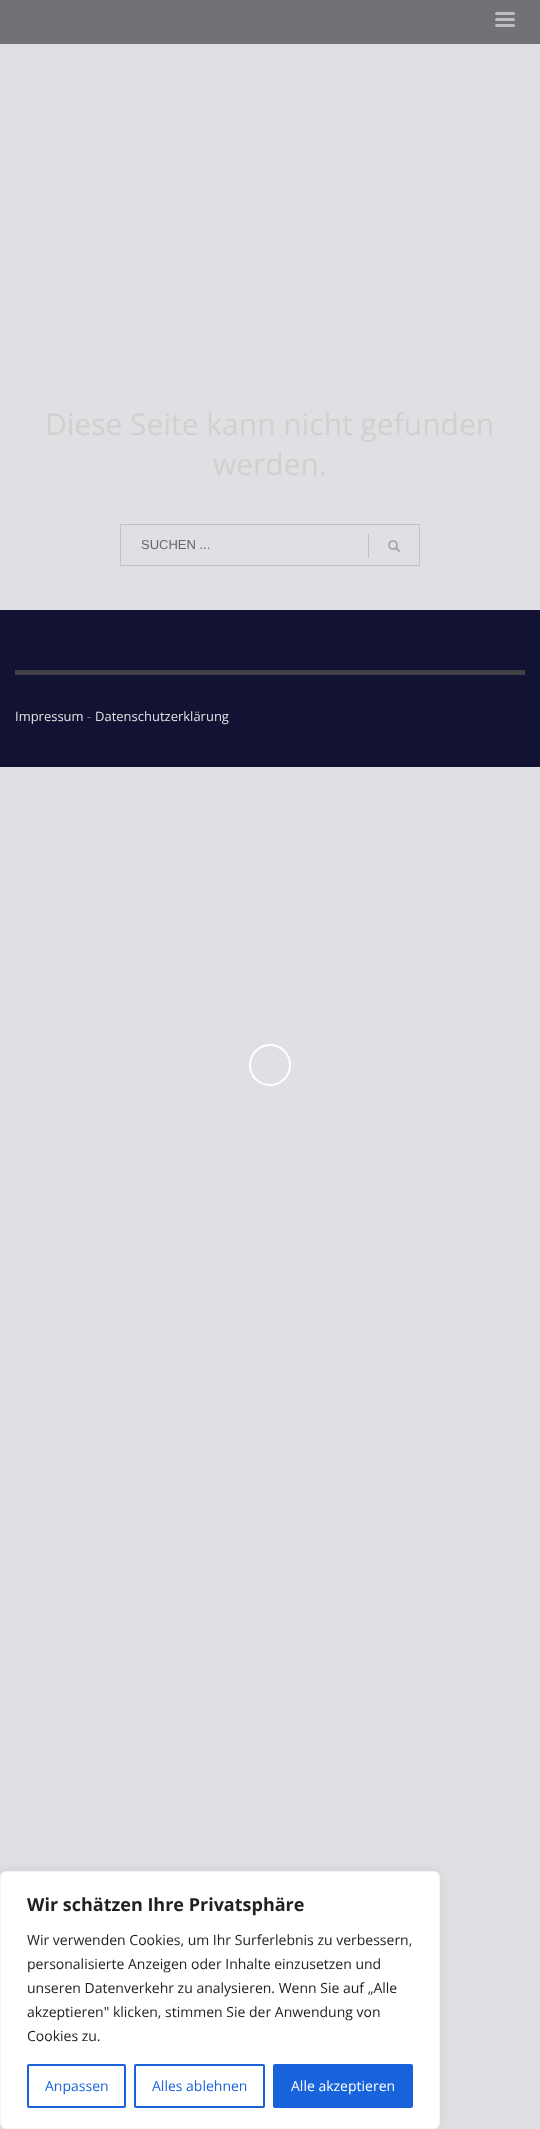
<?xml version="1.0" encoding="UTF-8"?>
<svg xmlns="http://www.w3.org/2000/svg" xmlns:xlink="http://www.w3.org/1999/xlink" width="540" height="2129">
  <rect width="100%" height="100%" fill="#e0e0e4" />
  <rect width="540" height="44" fill="#727276" />
  <rect x="495" y="12" width="20" height="3" rx="1.5" fill="#bdbdc2" />
  <rect x="495" y="18" width="20" height="3" rx="1.5" fill="#bdbdc2" />
  <rect x="495" y="24" width="20" height="3" rx="1.5" fill="#bdbdc2" />
  <rect x="120.5" y="524.5" width="299" height="41" fill="none" stroke="#c3c3c7" />
  <rect x="368" y="534" width="1" height="24" fill="#c3c3c7" />
  <image x="388" y="540" width="12" height="12" xlink:href="image1.png" />
  <rect y="610" width="540" height="157" fill="#121232" />
  <rect x="15" y="670" width="510" height="5" fill="#414145" />
  <circle cx="270" cy="1065" r="20" fill="none" stroke="#ffffff" stroke-width="2" />
  <rect y="1870" width="440" height="258" rx="6" fill="#acabab" fill-opacity="0.3" filter="blur(5px)" />
  <rect x="0.5" y="1871.5" width="439" height="257" rx="5.5" fill="#ffffff" stroke="#f4f4f4" />
  <rect x="28" y="2065" width="97" height="42" rx="1" fill="none" stroke="#1863dc" stroke-width="2" />
  <rect x="135" y="2065" width="129" height="42" rx="1" fill="none" stroke="#1863dc" stroke-width="2" />
  <rect x="274" y="2065" width="138" height="42" rx="1" fill="#1863dc" stroke="#1863dc" stroke-width="2" />
  <text x="45" y="435" style="font-family: Open Sans; font-size: 30px; fill: #d2d0cd">Diese Seite kann nicht gefunden</text>
  <text x="213" y="475" style="font-family: Open Sans; font-size: 30px; fill: #d2d0cd">werden.</text>
  <text x="141" y="549" style="font-family: Liberation Sans; font-size: 13px; fill: #68686c">SUCHEN ...</text>
  <text x="15" y="721" style="font-family: Open Sans; font-size: 13px; fill: #e0e0e4">Impressum</text>
  <text x="87" y="721" style="font-family: Open Sans; font-size: 13px; fill: #7b7c81">-</text>
  <text x="95" y="721" style="font-family: Open Sans; font-size: 13px; fill: #e0e0e4">Datenschutzerklärung</text>
  <text x="27" y="1911" style="font-family: Open Sans; font-size: 18px; font-weight: bold; fill: #212121">Wir schätzen Ihre Privatsphäre</text>
  <text x="27" y="1945" style="font-family: Open Sans; font-size: 14px; fill: #212121">Wir verwenden Cookies, um Ihr Surferlebnis zu verbessern,</text>
  <text x="27" y="1969" style="font-family: Open Sans; font-size: 14px; fill: #212121">personalisierte Anzeigen oder Inhalte einzusetzen und</text>
  <text x="27" y="1993" style="font-family: Open Sans; font-size: 14px; fill: #212121">unseren Datenverkehr zu analysieren. Wenn Sie auf „Alle</text>
  <text x="27" y="2017" style="font-family: Open Sans; font-size: 14px; fill: #212121">akzeptieren" klicken, stimmen Sie der Anwendung von</text>
  <text x="27" y="2041" style="font-family: Open Sans; font-size: 14px; fill: #212121">Cookies zu.</text>
  <text x="45" y="2091" style="font-family: Open Sans; font-size: 14px; fill: #1863dc">Anpassen</text>
  <text x="152" y="2091" style="font-family: Open Sans; font-size: 14px; fill: #1863dc">Alles ablehnen</text>
  <text x="291" y="2091" style="font-family: Open Sans; font-size: 14px; fill: #ffffff">Alle akzeptieren</text>
</svg>
